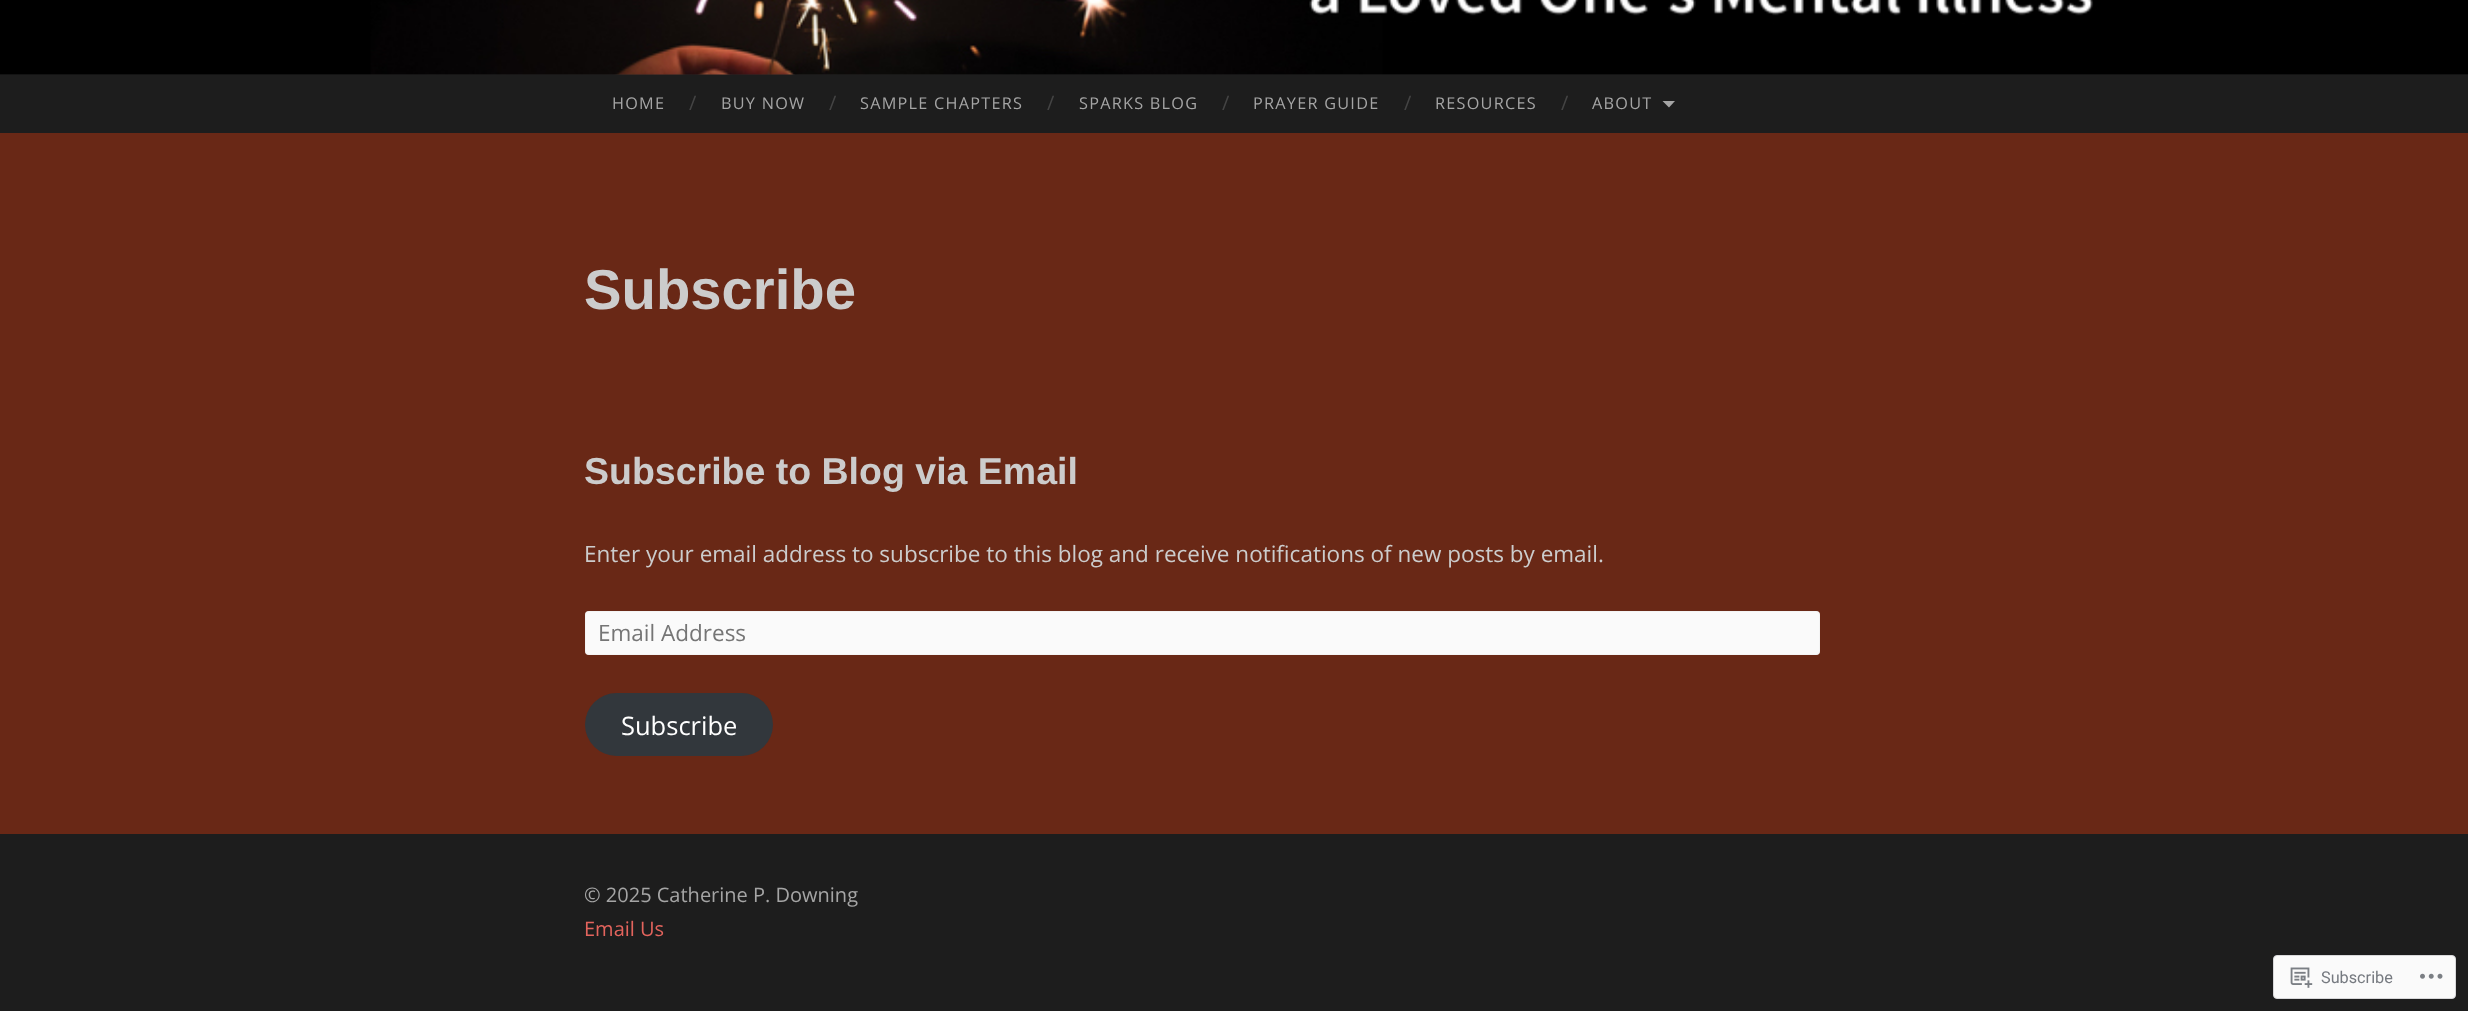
<?xml version="1.0" encoding="UTF-8"?>
<svg xmlns="http://www.w3.org/2000/svg" xmlns:xlink="http://www.w3.org/1999/xlink" width="2468" height="1011">
  <rect width="100%" height="100%" fill="#692816" />
  <rect y="74" width="2468" height="1" fill="#262626" />
  <image x="0" y="0" width="2468" height="75" xlink:href="image1.png" />
  <rect y="75" width="2468" height="58" fill="#1d1d1d" />
  <path d="M 1662.5 101 h 12.5 l -6 6.5 z" fill="#a5a5a5" />
  <rect x="585" y="611" width="1235" height="44" rx="4" fill="#fafafa" />
  <rect x="585.5" y="611.5" width="1234" height="43" rx="3.5" fill="none" stroke="#eeeeee" stroke-opacity="0.5" />
  <rect x="585" y="693" width="188" height="63" rx="31.5" fill="#32373c" />
  <rect y="834" width="2468" height="177" fill="#1d1d1d" />
  <rect x="2273.5" y="955.5" width="182" height="43" rx="3.5" fill="#fafafa" stroke="#d8d8da" />
  <image x="2290" y="967" width="23" height="21" xlink:href="image2.png" />
  <image x="2420" y="973" width="23" height="6" xlink:href="image3.png" />
  <text x="612" y="109" style="font-family: Open Sans; font-size: 16.25px; letter-spacing: 1.25px; fill: #a5a5a5">HOME</text>
  <text x="689" y="110" style="font-family: Open Sans; font-size: 20px; fill: #444444">/</text>
  <text x="721" y="109" style="font-family: Open Sans; font-size: 16.25px; letter-spacing: 1.25px; fill: #a5a5a5">BUY NOW</text>
  <text x="829" y="110" style="font-family: Open Sans; font-size: 20px; fill: #444444">/</text>
  <text x="860" y="109" style="font-family: Open Sans; font-size: 16.25px; letter-spacing: 1.25px; fill: #a5a5a5">SAMPLE CHAPTERS</text>
  <text x="1047" y="110" style="font-family: Open Sans; font-size: 20px; fill: #444444">/</text>
  <text x="1079" y="109" style="font-family: Open Sans; font-size: 16.25px; letter-spacing: 1.25px; fill: #a5a5a5">SPARKS BLOG</text>
  <text x="1222" y="110" style="font-family: Open Sans; font-size: 20px; fill: #444444">/</text>
  <text x="1253" y="109" style="font-family: Open Sans; font-size: 16.25px; letter-spacing: 1.25px; fill: #a5a5a5">PRAYER GUIDE</text>
  <text x="1404" y="110" style="font-family: Open Sans; font-size: 20px; fill: #444444">/</text>
  <text x="1435" y="109" style="font-family: Open Sans; font-size: 16.25px; letter-spacing: 1.25px; fill: #a5a5a5">RESOURCES</text>
  <text x="1561" y="110" style="font-family: Open Sans; font-size: 20px; fill: #444444">/</text>
  <text x="1592" y="109" style="font-family: Open Sans; font-size: 16.25px; letter-spacing: 1.25px; fill: #a5a5a5">ABOUT</text>
  <text x="584" y="309" style="font-family: Liberation Sans; font-size: 56.25px; font-weight: bold; fill: #cccccc">Subscribe</text>
  <text x="584" y="484" style="font-family: Liberation Sans; font-size: 37.5px; font-weight: bold; fill: #cccccc">Subscribe to Blog via Email</text>
  <text x="584" y="562" style="font-family: Open Sans; font-size: 22.5px; fill: #cccccc">Enter your email address to subscribe to this blog and receive notifications of new posts by email.</text>
  <text x="598" y="641" style="font-family: Open Sans; font-size: 22.5px; fill: #757575">Email Address</text>
  <text x="621" y="735" style="font-family: Open Sans; font-size: 25.5px; fill: #ffffff">Subscribe</text>
  <text x="584" y="902" style="font-family: Open Sans; font-size: 20px; fill: #a5a5a5">© 2025 Catherine P. Downing</text>
  <text x="584" y="936" style="font-family: Open Sans; font-size: 20px; fill: #e3645d">Email Us</text>
  <text x="2321" y="983" style="font-family: Roboto; font-size: 16.25px; fill: #767a80">Subscribe</text>
</svg>
